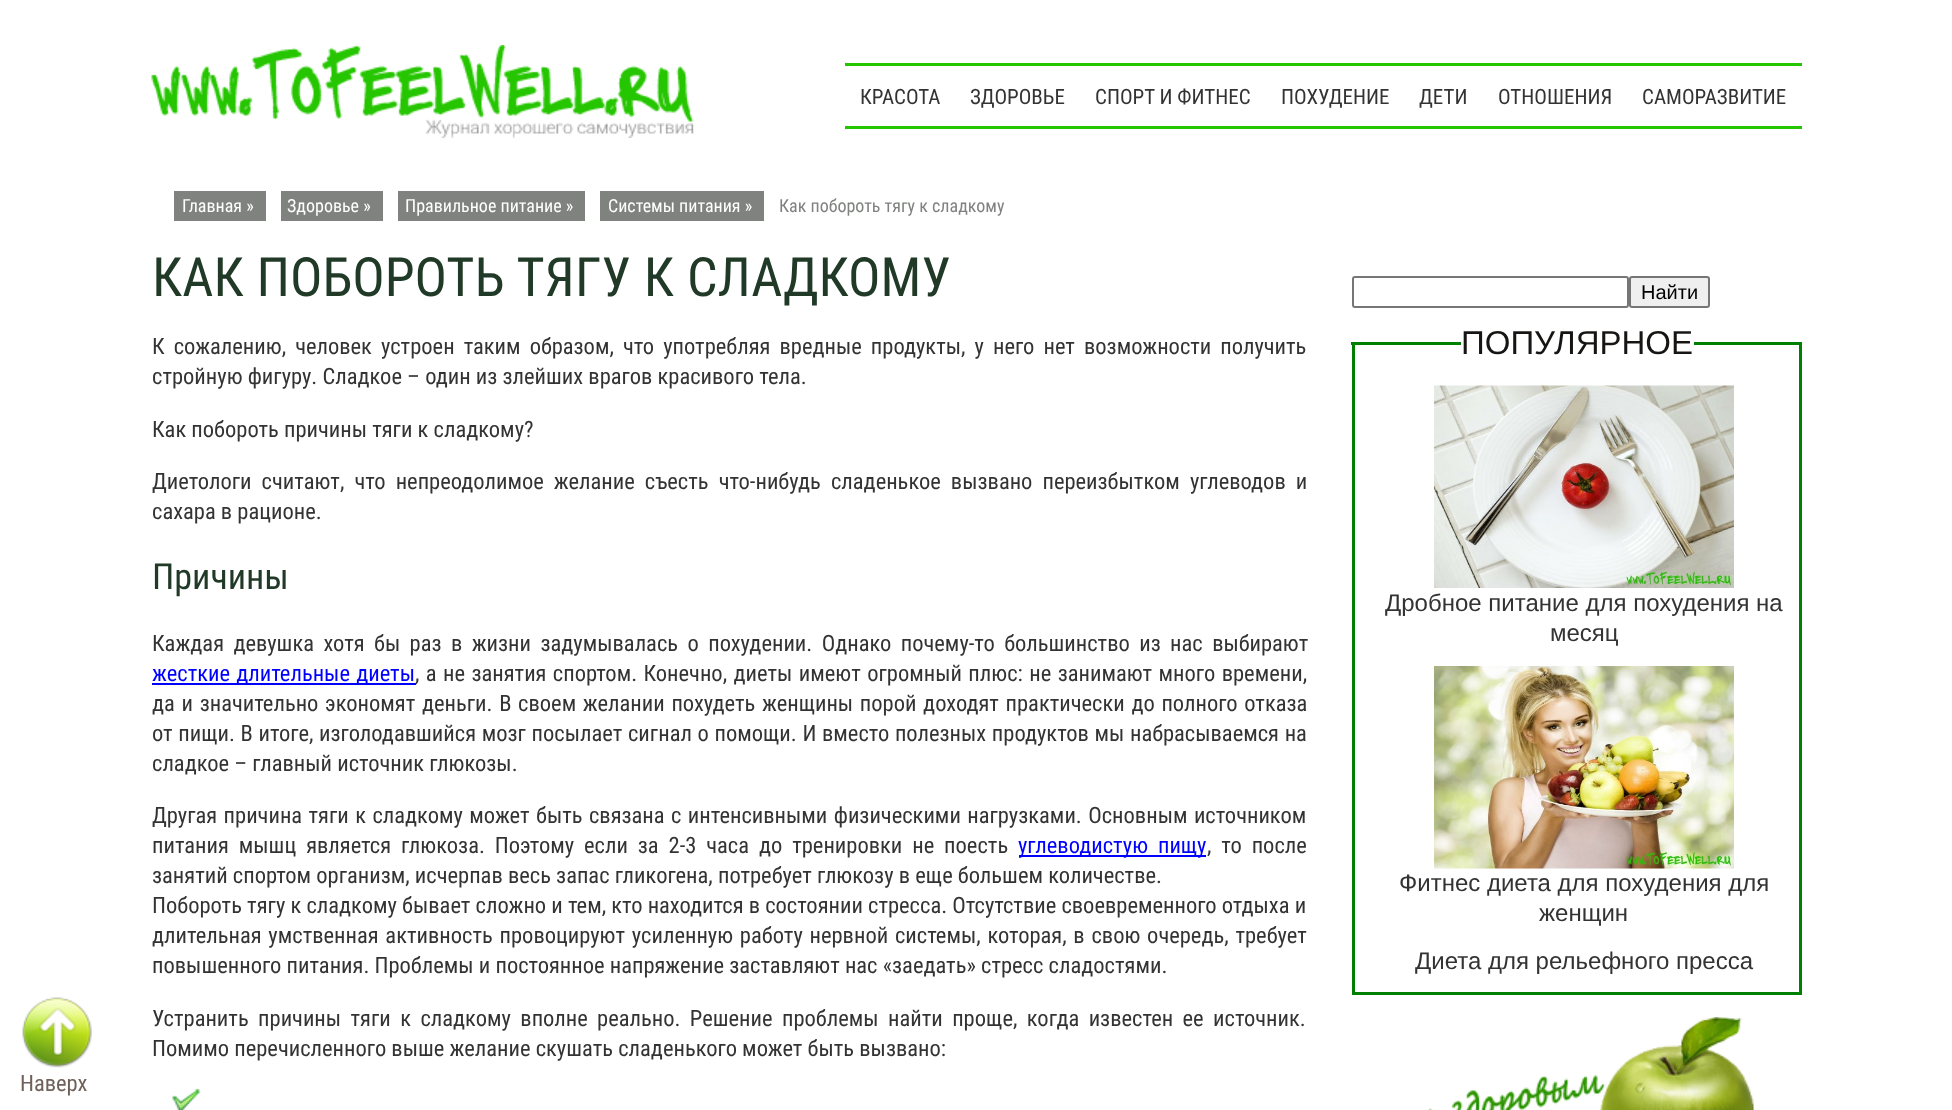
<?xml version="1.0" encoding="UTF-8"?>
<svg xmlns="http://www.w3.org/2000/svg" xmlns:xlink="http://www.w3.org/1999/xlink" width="1952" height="1110">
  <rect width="100%" height="100%" fill="#ffffff" />
  <image x="151" y="45" width="543" height="93" xlink:href="image1.png" />
  <rect x="845" y="63" width="957" height="3" fill="#25c500" />
  <rect x="845" y="126" width="957" height="3" fill="#25c500" />
  <rect x="174" y="191" width="92" height="30" fill="#7f827f" />
  <rect x="281" y="191" width="102" height="30" fill="#7f827f" />
  <rect x="398" y="191" width="187" height="30" fill="#7f827f" />
  <rect x="600" y="191" width="164" height="30" fill="#7f827f" />
  <rect x="152" y="683" width="264" height="2" fill="#0000ff" />
  <rect x="1019" y="855" width="187" height="2" fill="#0000ff" />
  <image x="172" y="1088" width="28" height="22" xlink:href="image2.png" />
  <rect x="1353" y="277" width="275" height="30" rx="2" fill="none" stroke="#767676" stroke-width="2" />
  <rect x="1630" y="277" width="79" height="30" rx="2" fill="#efefef" stroke="#767676" stroke-width="2" />
  <rect x="1351" y="342" width="1" height="3" fill="#008000" />
  <rect x="1353.5" y="343.5" width="447" height="650" fill="none" stroke="#008000" stroke-width="3" />
  <rect x="1461" y="342" width="233" height="3" fill="#ffffff" />
  <image x="1434" y="385" width="300" height="203" xlink:href="image3.png" />
  <image x="1434" y="666" width="300" height="203" xlink:href="image4.png" />
  <image x="1428" y="1017" width="327" height="93" xlink:href="image5.png" />
  <image x="22" y="997" width="70" height="71" xlink:href="image6.png" />
  <text x="860" y="104" style="font-family: Roboto Condensed; font-size: 21px; fill: #333333">КРАСОТА</text>
  <text x="970" y="104" style="font-family: Roboto Condensed; font-size: 21px; fill: #333333">ЗДОРОВЬЕ</text>
  <text x="1095" y="104" style="font-family: Roboto Condensed; font-size: 21px; fill: #333333">СПОРТ И ФИТНЕС</text>
  <text x="1281" y="104" style="font-family: Roboto Condensed; font-size: 21px; fill: #333333">ПОХУДЕНИЕ</text>
  <text x="1419" y="104" style="font-family: Roboto Condensed; font-size: 21px; fill: #333333">ДЕТИ</text>
  <text x="1498" y="104" style="font-family: Roboto Condensed; font-size: 21px; fill: #333333">ОТНОШЕНИЯ</text>
  <text x="1642" y="104" style="font-family: Roboto Condensed; font-size: 21px; fill: #333333">САМОРАЗВИТИЕ</text>
  <text x="182" y="212" style="font-family: Roboto Condensed; font-size: 18px; fill: #ffffff">Главная »</text>
  <text x="287" y="212" style="font-family: Roboto Condensed; font-size: 18px; fill: #ffffff">Здоровье »</text>
  <text x="405" y="212" style="font-family: Roboto Condensed; font-size: 18px; fill: #ffffff">Правильное питание »</text>
  <text x="608" y="212" style="font-family: Roboto Condensed; font-size: 18px; fill: #ffffff">Системы питания »</text>
  <text x="779" y="212" style="font-family: Roboto Condensed; font-size: 18px; fill: #7f827f">Как побороть тягу к сладкому</text>
  <text x="152" y="296" word-spacing="0.5" style="font-family: Roboto Condensed; font-size: 54px; fill: #203a27">КАК ПОБОРОТЬ ТЯГУ К СЛАДКОМУ</text>
  <text x="152" y="354" word-spacing="3.9" style="font-family: Roboto Condensed; font-size: 22.5px; fill: #333333">К сожалению, человек устроен таким образом, что употребляя вредные продукты, у него нет возможности получить</text>
  <text x="152" y="384" style="font-family: Roboto Condensed; font-size: 22.5px; fill: #333333">стройную фигуру. Сладкое – один из злейших врагов красивого тела.</text>
  <text x="152" y="437" style="font-family: Roboto Condensed; font-size: 22.5px; fill: #333333">Как побороть причины тяги к сладкому?</text>
  <text x="152" y="489" word-spacing="4.9" style="font-family: Roboto Condensed; font-size: 22.5px; fill: #333333">Диетологи считают, что непреодолимое желание съесть что-нибудь сладенькое вызвано переизбытком углеводов и</text>
  <text x="152" y="519" style="font-family: Roboto Condensed; font-size: 22.5px; fill: #333333">сахара в рационе.</text>
  <text x="152" y="589" style="font-family: Roboto Condensed; font-size: 36px; fill: #203a27">Причины</text>
  <text x="152" y="651" word-spacing="4.25" style="font-family: Roboto Condensed; font-size: 22.5px; fill: #333333">Каждая девушка хотя бы раз в жизни задумывалась о похудении. Однако почему-то большинство из нас выбирают</text>
  <text x="152" y="681" word-spacing="1" style="font-family: Roboto Condensed; font-size: 22.5px; fill: #0000ff">жесткие длительные диеты</text>
  <text x="415" y="681" word-spacing="1.25" style="font-family: Roboto Condensed; font-size: 22.5px; fill: #333333">, а не занятия спортом. Конечно, диеты имеют огромный плюс: не занимают много времени,</text>
  <text x="152" y="711" word-spacing="1.5" style="font-family: Roboto Condensed; font-size: 22.5px; fill: #333333">да и значительно экономят деньги. В своем желании похудеть женщины порой доходят практически до полного отказа</text>
  <text x="152" y="741" word-spacing="0.5" style="font-family: Roboto Condensed; font-size: 22.5px; fill: #333333">от пищи. В итоге, изголодавшийся мозг посылает сигнал о помощи. И вместо полезных продуктов мы набрасываемся на</text>
  <text x="152" y="771" style="font-family: Roboto Condensed; font-size: 22.5px; fill: #333333">сладкое – главный источник глюкозы.</text>
  <text x="152" y="823" word-spacing="1.25" style="font-family: Roboto Condensed; font-size: 22.5px; fill: #333333">Другая причина тяги к сладкому может быть связана с интенсивными физическими нагрузками. Основным источником</text>
  <text x="152" y="853" word-spacing="4.75" style="font-family: Roboto Condensed; font-size: 22.5px; fill: #333333">питания мышц является глюкоза. Поэтому если за 2-3 часа до тренировки не поесть</text>
  <text x="1018" y="853" word-spacing="4.75" style="font-family: Roboto Condensed; font-size: 22.5px; fill: #0000ff">углеводистую пищу</text>
  <text x="1207" y="853" word-spacing="4.75" style="font-family: Roboto Condensed; font-size: 22.5px; fill: #333333">, то после</text>
  <text x="152" y="883" style="font-family: Roboto Condensed; font-size: 22.5px; fill: #333333">занятий спортом организм, исчерпав весь запас гликогена, потребует глюкозу в еще большем количестве.</text>
  <text x="152" y="913" style="font-family: Roboto Condensed; font-size: 22.5px; fill: #333333">Побороть тягу к сладкому бывает сложно и тем, кто находится в состоянии стресса. Отсутствие своевременного отдыха и</text>
  <text x="152" y="943" word-spacing="1.6" style="font-family: Roboto Condensed; font-size: 22.5px; fill: #333333">длительная умственная активность провоцируют усиленную работу нервной системы, которая, в свою очередь, требует</text>
  <text x="152" y="973" style="font-family: Roboto Condensed; font-size: 22.5px; fill: #333333">повышенного питания. Проблемы и постоянное напряжение заставляют нас «заедать» стресс сладостями.</text>
  <text x="152" y="1026" word-spacing="4.25" style="font-family: Roboto Condensed; font-size: 22.5px; fill: #333333">Устранить причины тяги к сладкому вполне реально. Решение проблемы найти проще, когда известен ее источник.</text>
  <text x="152" y="1056" style="font-family: Roboto Condensed; font-size: 22.5px; fill: #333333">Помимо перечисленного выше желание скушать сладенького может быть вызвано:</text>
  <text x="1641" y="299" style="font-family: Liberation Sans; font-size: 20px; fill: #000000">Найти</text>
  <text x="1461" y="354" style="font-family: Liberation Sans; font-size: 33px; fill: #161514">ПОПУЛЯРНОЕ</text>
  <text x="1385" y="611" style="font-family: Liberation Sans; font-size: 24px; fill: #333333">Дробное питание для похудения на</text>
  <text x="1550" y="641" style="font-family: Liberation Sans; font-size: 24px; fill: #333333">месяц</text>
  <text x="1399" y="891" style="font-family: Liberation Sans; font-size: 24px; fill: #333333">Фитнес диета для похудения для</text>
  <text x="1539" y="921" style="font-family: Liberation Sans; font-size: 24px; fill: #333333">женщин</text>
  <text x="1415" y="969" style="font-family: Liberation Sans; font-size: 24px; fill: #333333">Диета для рельефного пресса</text>
  <text x="20" y="1091" style="font-family: Roboto Condensed; font-size: 22.5px; fill: #6f615a">Наверх</text>
</svg>
